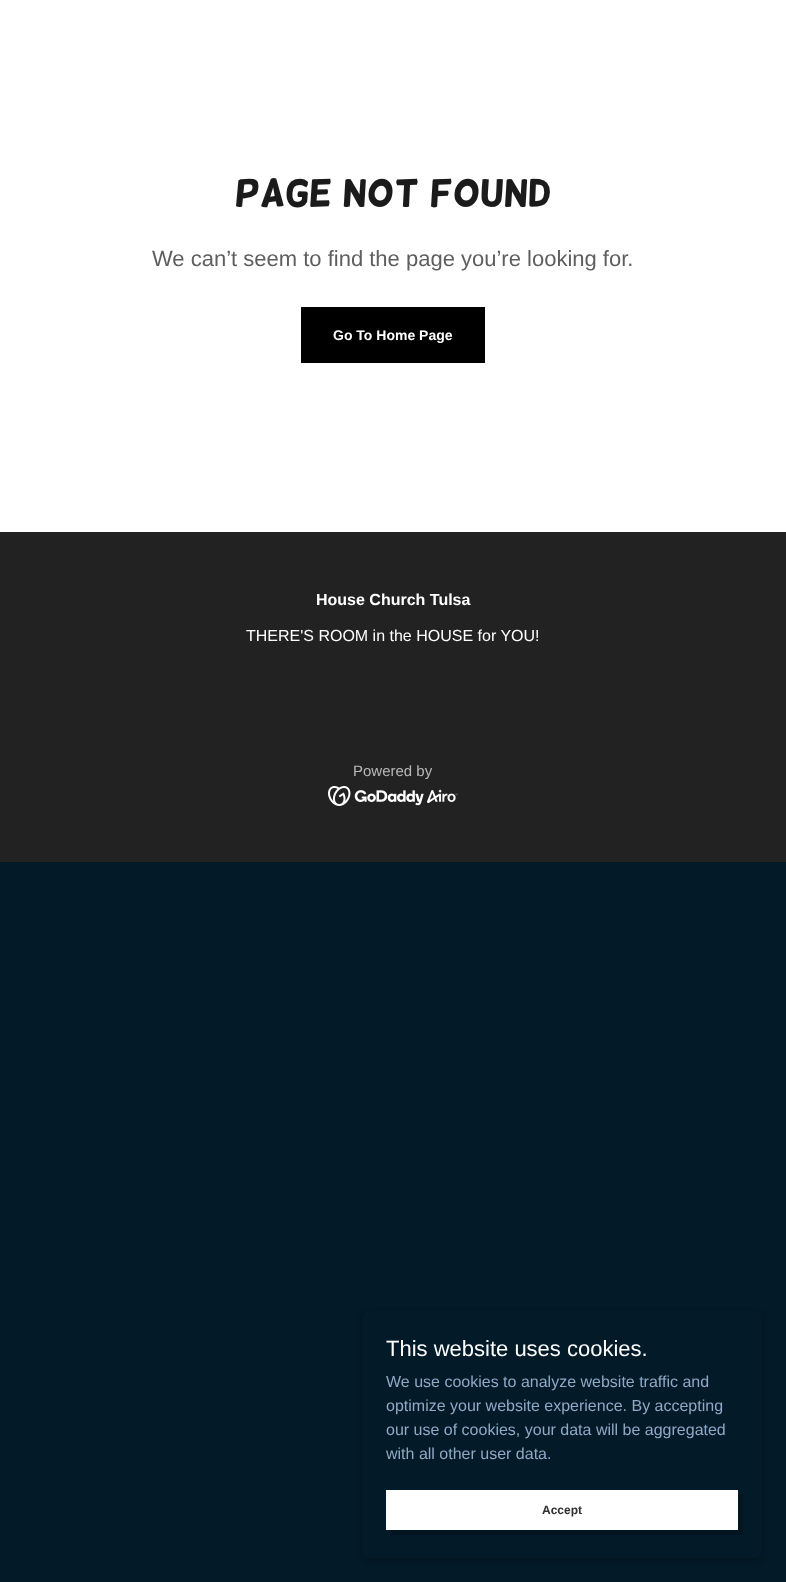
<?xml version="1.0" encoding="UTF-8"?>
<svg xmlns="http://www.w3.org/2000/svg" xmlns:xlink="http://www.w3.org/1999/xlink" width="786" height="1582">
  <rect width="100%" height="100%" fill="#031a29" />
  <rect width="786" height="532" fill="#ffffff" />
  <rect x="301" y="307" width="184" height="56" fill="#000000" />
  <rect y="532" width="786" height="330" fill="#222222" />
  <image x="328" y="786" width="130" height="20" xlink:href="image1.png" />
  <rect x="362" y="1313" width="400" height="247" rx="7" fill="#000000" fill-opacity="0.3" filter="blur(3px)" />
  <rect x="362" y="1311" width="400" height="247" rx="7" fill="#031a29" />
  <rect x="386" y="1490" width="352" height="40" fill="#ffffff" />
  <path d="M 391 1530 v 5 h 352 v -40 h -5 v 35 z" fill="#021521" />
  <text x="235" y="206" style="font-family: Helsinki; font-size: 38px; fill: #1b1b1b">Page Not Found</text>
  <text x="152" y="266" style="font-family: Liberation Sans; font-size: 22px; fill: #5e5e5e">We can’t seem to find the page you’re looking for.</text>
  <text x="333" y="340" style="font-family: Liberation Sans; font-size: 14px; font-weight: bold; fill: #ffffff">Go To Home Page</text>
  <text x="316" y="605" style="font-family: Liberation Sans; font-size: 16px; font-weight: bold; fill: #ffffff">House Church Tulsa</text>
  <text x="246" y="641" style="font-family: Liberation Sans; font-size: 16px; fill: #ffffff">THERE'S ROOM in the HOUSE for YOU!</text>
  <text x="353" y="776" style="font-family: Liberation Sans; font-size: 15px; fill: #b9b9b9">Powered by</text>
  <text x="386" y="1356" style="font-family: Liberation Sans; font-size: 22px; fill: #ffffff">This website uses cookies.</text>
  <text x="386" y="1387" style="font-family: Liberation Sans; font-size: 16px; fill: #90a9c4">We use cookies to analyze website traffic and</text>
  <text x="386" y="1411" style="font-family: Liberation Sans; font-size: 16px; fill: #90a9c4">optimize your website experience. By accepting</text>
  <text x="386" y="1435" style="font-family: Liberation Sans; font-size: 16px; fill: #90a9c4">our use of cookies, your data will be aggregated</text>
  <text x="386" y="1459" style="font-family: Liberation Sans; font-size: 16px; fill: #90a9c4">with all other user data.</text>
  <text x="542" y="1514" style="font-family: Liberation Sans; font-size: 12px; font-weight: bold; fill: #303030">Accept</text>
</svg>
